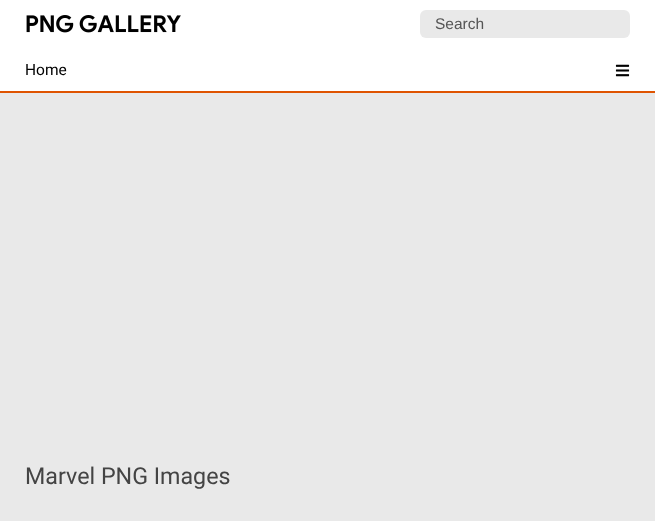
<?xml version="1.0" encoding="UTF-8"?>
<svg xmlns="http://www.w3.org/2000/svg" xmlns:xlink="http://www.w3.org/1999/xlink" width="655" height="521">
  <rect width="100%" height="100%" fill="#e9e9e9" />
  <rect width="655" height="91" fill="#ffffff" />
  <image x="26" y="15" width="155" height="18" xlink:href="image1.png" />
  <rect x="420" y="10" width="210" height="28" rx="6" fill="#e9e9e9" />
  <rect y="91" width="655" height="2" fill="#df5401" />
  <image x="615" y="64" width="15" height="13" xlink:href="image2.png" />
  <text x="435" y="29" style="font-family: Liberation Sans; font-size: 15.5px; fill: #555555">Search</text>
  <text x="25" y="75" style="font-family: Roboto; font-size: 15.5px; fill: #000000">Home</text>
  <text x="25" y="484" style="font-family: Roboto; font-size: 23.25px; fill: #444444">Marvel PNG Images</text>
</svg>
